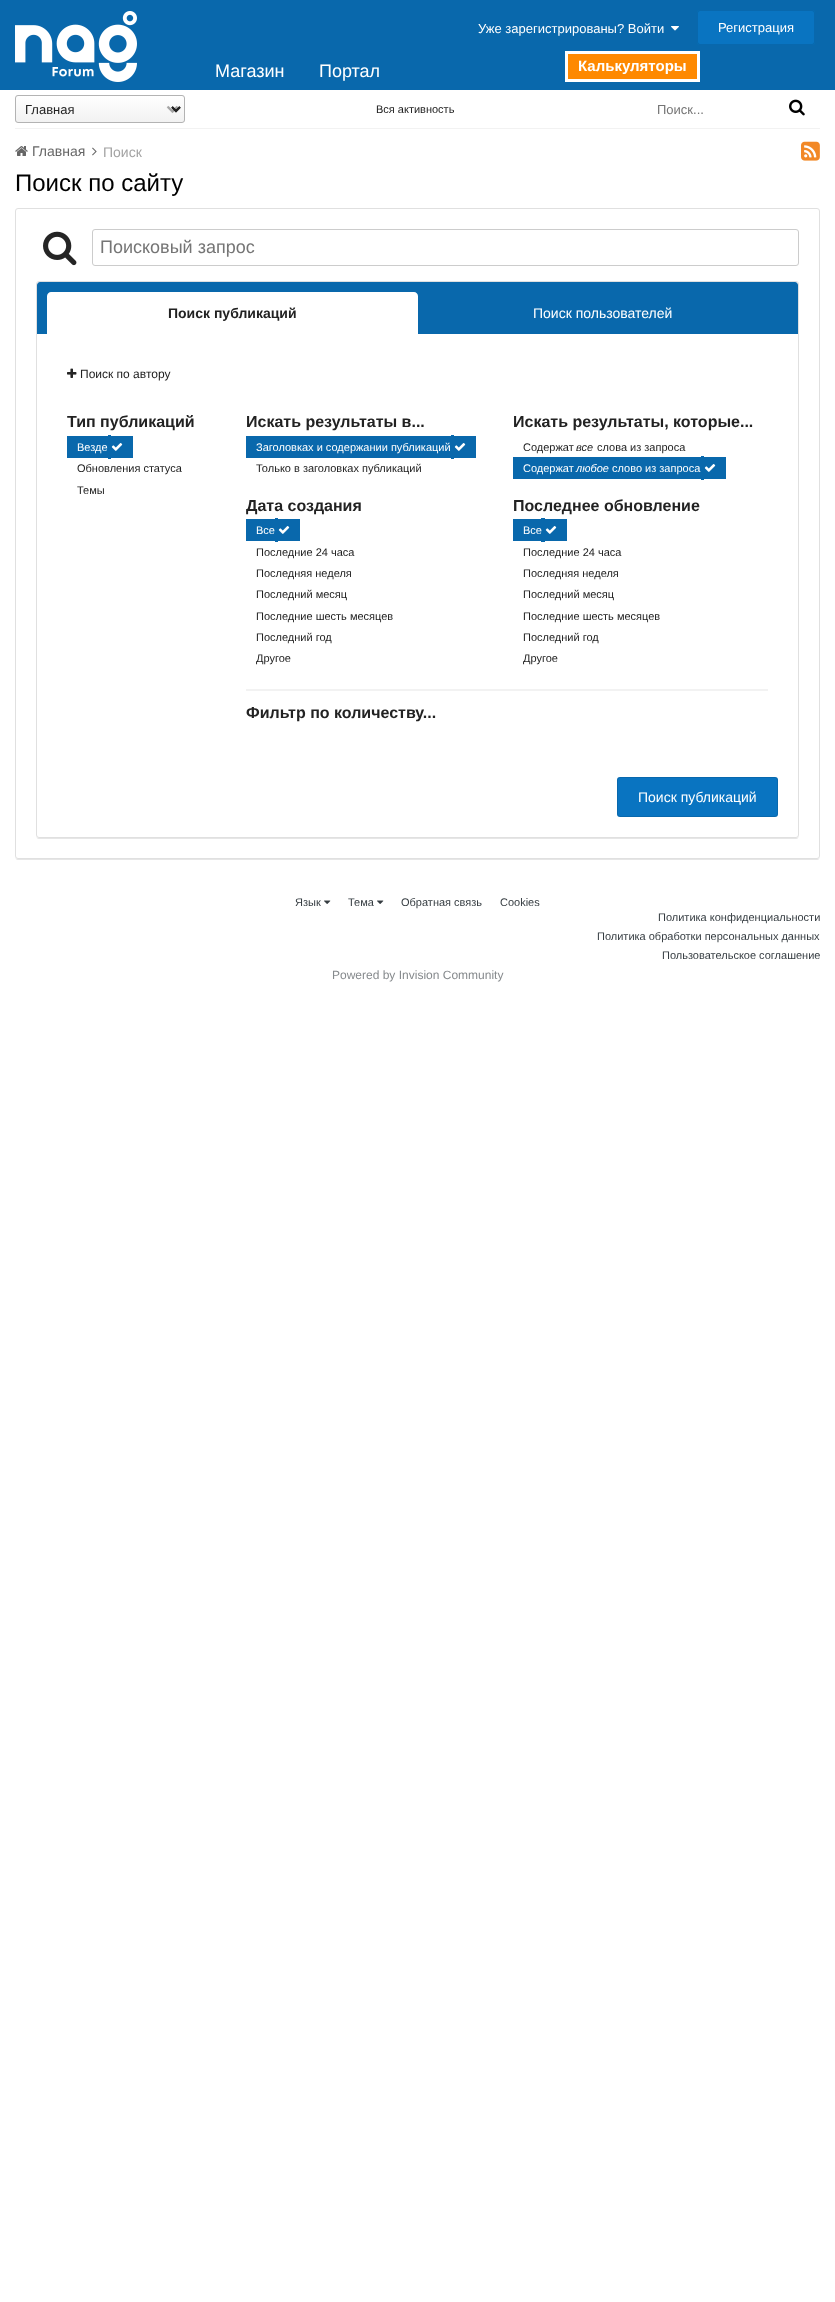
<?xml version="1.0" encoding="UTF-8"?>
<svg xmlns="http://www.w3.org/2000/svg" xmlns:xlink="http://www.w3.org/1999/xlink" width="835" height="2302">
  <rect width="100%" height="100%" fill="#ffffff" />
  <rect width="835" height="90" fill="#0968ac" />
  <image x="15" y="11" width="122" height="71" xlink:href="image1.png" />
  <image x="671" y="26" width="8" height="5" xlink:href="image2.png" />
  <rect x="697" y="10" width="118" height="35" rx="3" fill="#0974c1" />
  <rect x="697.5" y="10.5" width="117" height="34" rx="2.5" fill="none" stroke="#000000" stroke-opacity="0.1" />
  <rect x="566.5" y="52.5" width="132" height="28" fill="#fe8900" stroke="#ffffff" stroke-width="3" />
  <rect x="15" y="128" width="805" height="1" fill="#f2f2f2" />
  <image x="15" y="95" width="170" height="27" xlink:href="image3.png" />
  <rect x="15.5" y="95.5" width="169" height="27" rx="2.5" fill="none" stroke="#b3b3b3" />
  <path d="M 172 107 l 4 4 l 4 -4" fill="none" stroke="#222222" stroke-width="2" />
  <image x="789" y="99" width="16" height="17" xlink:href="image4.png" />
  <image x="15" y="146" width="13" height="10" xlink:href="image5.png" />
  <image x="92" y="147" width="5" height="9" xlink:href="image6.png" />
  <image x="801" y="141" width="19" height="20" xlink:href="image7.png" />
  <path d="M 15 856 c 0 2 1 4 3 4 h 799 c 2 0 3 -2 3 -4 c 0 2 -1 3 -3 3 h -799 c -2 0 -3 -1 -3 -3 z" fill="#e6e6e6" />
  <rect x="15.5" y="208.5" width="804" height="650" rx="2.5" fill="#ffffff" stroke="#e0e0e0" />
  <image x="43" y="231" width="34" height="35" xlink:href="image8.png" />
  <rect x="92.5" y="229.5" width="706" height="36" rx="2.5" fill="none" stroke="#cccccc" />
  <path d="M 36 835 c 0 2 1 4 3 4 h 757 c 2 0 3 -2 3 -4 c 0 2 -1 3 -3 3 h -757 c -2 0 -3 -1 -3 -3 z" fill="#e6e6e6" />
  <rect x="36.5" y="281.5" width="762" height="556" rx="2.5" fill="#ffffff" stroke="#e0e0e0" />
  <path d="M 40 282 h 755 c 1.5 0 3 1.5 3 3 v 49 h -761 v -49 c 0 -1.5 1.5 -3 3 -3 z" fill="#0968ac" />
  <path d="M 51 292 h 363 c 2 0 4 2 4 4 v 38 h -371 v -38 c 0 -2 2 -4 4 -4 z" fill="#ffffff" />
  <image x="67" y="368" width="10" height="10" xlink:href="image9.png" />
  <rect x="67" y="436" width="41" height="22" fill="#0968ac" />
  <rect x="108" y="435" width="3" height="24" fill="#0968ac" />
  <rect x="111" y="436" width="22" height="22" fill="#0968ac" />
  <image x="111" y="443" width="12" height="8" xlink:href="image10.png" />
  <rect x="246" y="436" width="205" height="22" fill="#0968ac" />
  <rect x="451" y="435" width="3" height="24" fill="#0968ac" />
  <rect x="454" y="436" width="22" height="22" fill="#0968ac" />
  <image x="454" y="443" width="12" height="8" xlink:href="image10.png" />
  <rect x="513" y="457" width="188" height="22" fill="#0968ac" />
  <rect x="701" y="456" width="3" height="24" fill="#0968ac" />
  <rect x="704" y="457" width="22" height="22" fill="#0968ac" />
  <image x="704" y="464" width="12" height="8" xlink:href="image10.png" />
  <rect x="246" y="519" width="29" height="22" fill="#0968ac" />
  <rect x="275" y="518" width="3" height="24" fill="#0968ac" />
  <rect x="278" y="519" width="22" height="22" fill="#0968ac" />
  <image x="278" y="526" width="12" height="8" xlink:href="image10.png" />
  <rect x="513" y="519" width="28" height="22" fill="#0968ac" />
  <rect x="541" y="518" width="4" height="24" fill="#0968ac" />
  <rect x="545" y="519" width="22" height="22" fill="#0968ac" />
  <image x="545" y="526" width="12" height="8" xlink:href="image10.png" />
  <rect x="246" y="689" width="522" height="2" fill="#f2f2f2" />
  <rect x="617" y="777" width="161" height="40" rx="3" fill="#0974c1" />
  <rect x="617.5" y="777.5" width="160" height="39" rx="2.5" fill="none" stroke="#000000" stroke-opacity="0.1" />
  <image x="324" y="900" width="7" height="4" xlink:href="image11.png" />
  <image x="377" y="900" width="7" height="4" xlink:href="image11.png" />
  <text x="215" y="77" style="font-family: Liberation Sans; font-size: 18px; fill: #ffffff">Магазин</text>
  <text x="319" y="77" style="font-family: Liberation Sans; font-size: 18px; fill: #ffffff">Портал</text>
  <text x="478" y="33" style="font-family: Liberation Sans; font-size: 13px; fill: #ffffff">Уже зарегистрированы? Войти</text>
  <text x="718" y="32" style="font-family: Liberation Sans; font-size: 13px; fill: #ffffff">Регистрация</text>
  <text x="578" y="71" style="font-family: Liberation Sans; font-size: 15px; font-weight: bold; fill: #ffffff">Калькуляторы</text>
  <text x="25" y="114" style="font-family: Liberation Sans; font-size: 13px; fill: #222222">Главная</text>
  <text x="376" y="113" style="font-family: Liberation Sans; font-size: 11px; fill: #222222">Вся активность</text>
  <text x="657" y="114" style="font-family: Liberation Sans; font-size: 13px; fill: #757575">Поиск...</text>
  <text x="32" y="156" style="font-family: Liberation Sans; font-size: 14px; fill: #666666">Главная</text>
  <text x="103" y="157" style="font-family: Liberation Sans; font-size: 14px; fill: #a3a3a3">Поиск</text>
  <text x="15" y="191" style="font-family: Liberation Sans; font-size: 24px; fill: #000000">Поиск по сайту</text>
  <text x="100" y="253" style="font-family: Liberation Sans; font-size: 18px; fill: #757575">Поисковый запрос</text>
  <text x="168" y="318" style="font-family: Liberation Sans; font-size: 14px; font-weight: bold; fill: #222222">Поиск публикаций</text>
  <text x="533" y="318" style="font-family: Liberation Sans; font-size: 14px; fill: #ffffff">Поиск пользователей</text>
  <text x="80" y="378" style="font-family: Liberation Sans; font-size: 12px; fill: #222222">Поиск по автору</text>
  <text x="67" y="427" style="font-family: Liberation Sans; font-size: 16px; font-weight: bold; fill: #222222">Тип публикаций</text>
  <text x="77" y="451" style="font-family: Liberation Sans; font-size: 11px; fill: #ffffff">Везде</text>
  <text x="77" y="472" style="font-family: Liberation Sans; font-size: 11px; fill: #222222">Обновления статуса</text>
  <text x="77" y="494" style="font-family: Liberation Sans; font-size: 11px; fill: #222222">Темы</text>
  <text x="246" y="427" style="font-family: Liberation Sans; font-size: 16px; font-weight: bold; fill: #222222">Искать результаты в...</text>
  <text x="256" y="451" style="font-family: Liberation Sans; font-size: 11px; fill: #ffffff">Заголовках и содержании публикаций</text>
  <text x="256" y="472" style="font-family: Liberation Sans; font-size: 11px; fill: #222222">Только в заголовках публикаций</text>
  <text x="513" y="427" style="font-family: Liberation Sans; font-size: 16px; font-weight: bold; fill: #222222">Искать результаты, которые...</text>
  <text x="523" y="451" style="font-family: Liberation Sans; font-size: 11px; fill: #222222">Содержат</text>
  <text x="576" y="451" style="font-family: Liberation Sans; font-size: 11px; font-style: italic; fill: #222222">все</text>
  <text x="597" y="451" style="font-family: Liberation Sans; font-size: 11px; fill: #222222">слова из запроса</text>
  <text x="523" y="472" style="font-family: Liberation Sans; font-size: 11px; fill: #ffffff">Содержат</text>
  <text x="576" y="472" style="font-family: Liberation Sans; font-size: 11px; font-style: italic; fill: #ffffff">любое</text>
  <text x="612" y="472" style="font-family: Liberation Sans; font-size: 11px; fill: #ffffff">слово из запроса</text>
  <text x="246" y="511" style="font-family: Liberation Sans; font-size: 16px; font-weight: bold; fill: #222222">Дата создания</text>
  <text x="256" y="534" style="font-family: Liberation Sans; font-size: 11px; fill: #ffffff">Все</text>
  <text x="256" y="556" style="font-family: Liberation Sans; font-size: 11px; fill: #222222">Последние 24 часа</text>
  <text x="256" y="577" style="font-family: Liberation Sans; font-size: 11px; fill: #222222">Последняя неделя</text>
  <text x="256" y="598" style="font-family: Liberation Sans; font-size: 11px; fill: #222222">Последний месяц</text>
  <text x="256" y="620" style="font-family: Liberation Sans; font-size: 11px; fill: #222222">Последние шесть месяцев</text>
  <text x="256" y="641" style="font-family: Liberation Sans; font-size: 11px; fill: #222222">Последний год</text>
  <text x="256" y="662" style="font-family: Liberation Sans; font-size: 11px; fill: #222222">Другое</text>
  <text x="513" y="511" style="font-family: Liberation Sans; font-size: 16px; font-weight: bold; fill: #222222">Последнее обновление</text>
  <text x="523" y="534" style="font-family: Liberation Sans; font-size: 11px; fill: #ffffff">Все</text>
  <text x="523" y="556" style="font-family: Liberation Sans; font-size: 11px; fill: #222222">Последние 24 часа</text>
  <text x="523" y="577" style="font-family: Liberation Sans; font-size: 11px; fill: #222222">Последняя неделя</text>
  <text x="523" y="598" style="font-family: Liberation Sans; font-size: 11px; fill: #222222">Последний месяц</text>
  <text x="523" y="620" style="font-family: Liberation Sans; font-size: 11px; fill: #222222">Последние шесть месяцев</text>
  <text x="523" y="641" style="font-family: Liberation Sans; font-size: 11px; fill: #222222">Последний год</text>
  <text x="523" y="662" style="font-family: Liberation Sans; font-size: 11px; fill: #222222">Другое</text>
  <text x="246" y="718" style="font-family: Liberation Sans; font-size: 16px; font-weight: bold; fill: #222222">Фильтр по количеству...</text>
  <text x="638" y="802" style="font-family: Liberation Sans; font-size: 14px; fill: #ffffff">Поиск публикаций</text>
  <text x="295" y="906" style="font-family: Liberation Sans; font-size: 11px; fill: #353c41">Язык</text>
  <text x="348" y="906" style="font-family: Liberation Sans; font-size: 11px; fill: #353c41">Тема</text>
  <text x="401" y="906" style="font-family: Liberation Sans; font-size: 11px; fill: #353c41">Обратная связь</text>
  <text x="500" y="906" style="font-family: Liberation Sans; font-size: 11px; fill: #353c41">Cookies</text>
  <text x="658" y="921" style="font-family: Liberation Sans; font-size: 11px; fill: #353c41">Политика конфиденциальности</text>
  <text x="597" y="940" style="font-family: Liberation Sans; font-size: 11px; fill: #353c41">Политика обработки персональных данных</text>
  <text x="662" y="959" style="font-family: Liberation Sans; font-size: 11px; fill: #353c41">Пользовательское соглашение</text>
  <text x="332" y="979" style="font-family: Liberation Sans; font-size: 12px; fill: #868a8d">Powered by Invision Community</text>
</svg>
